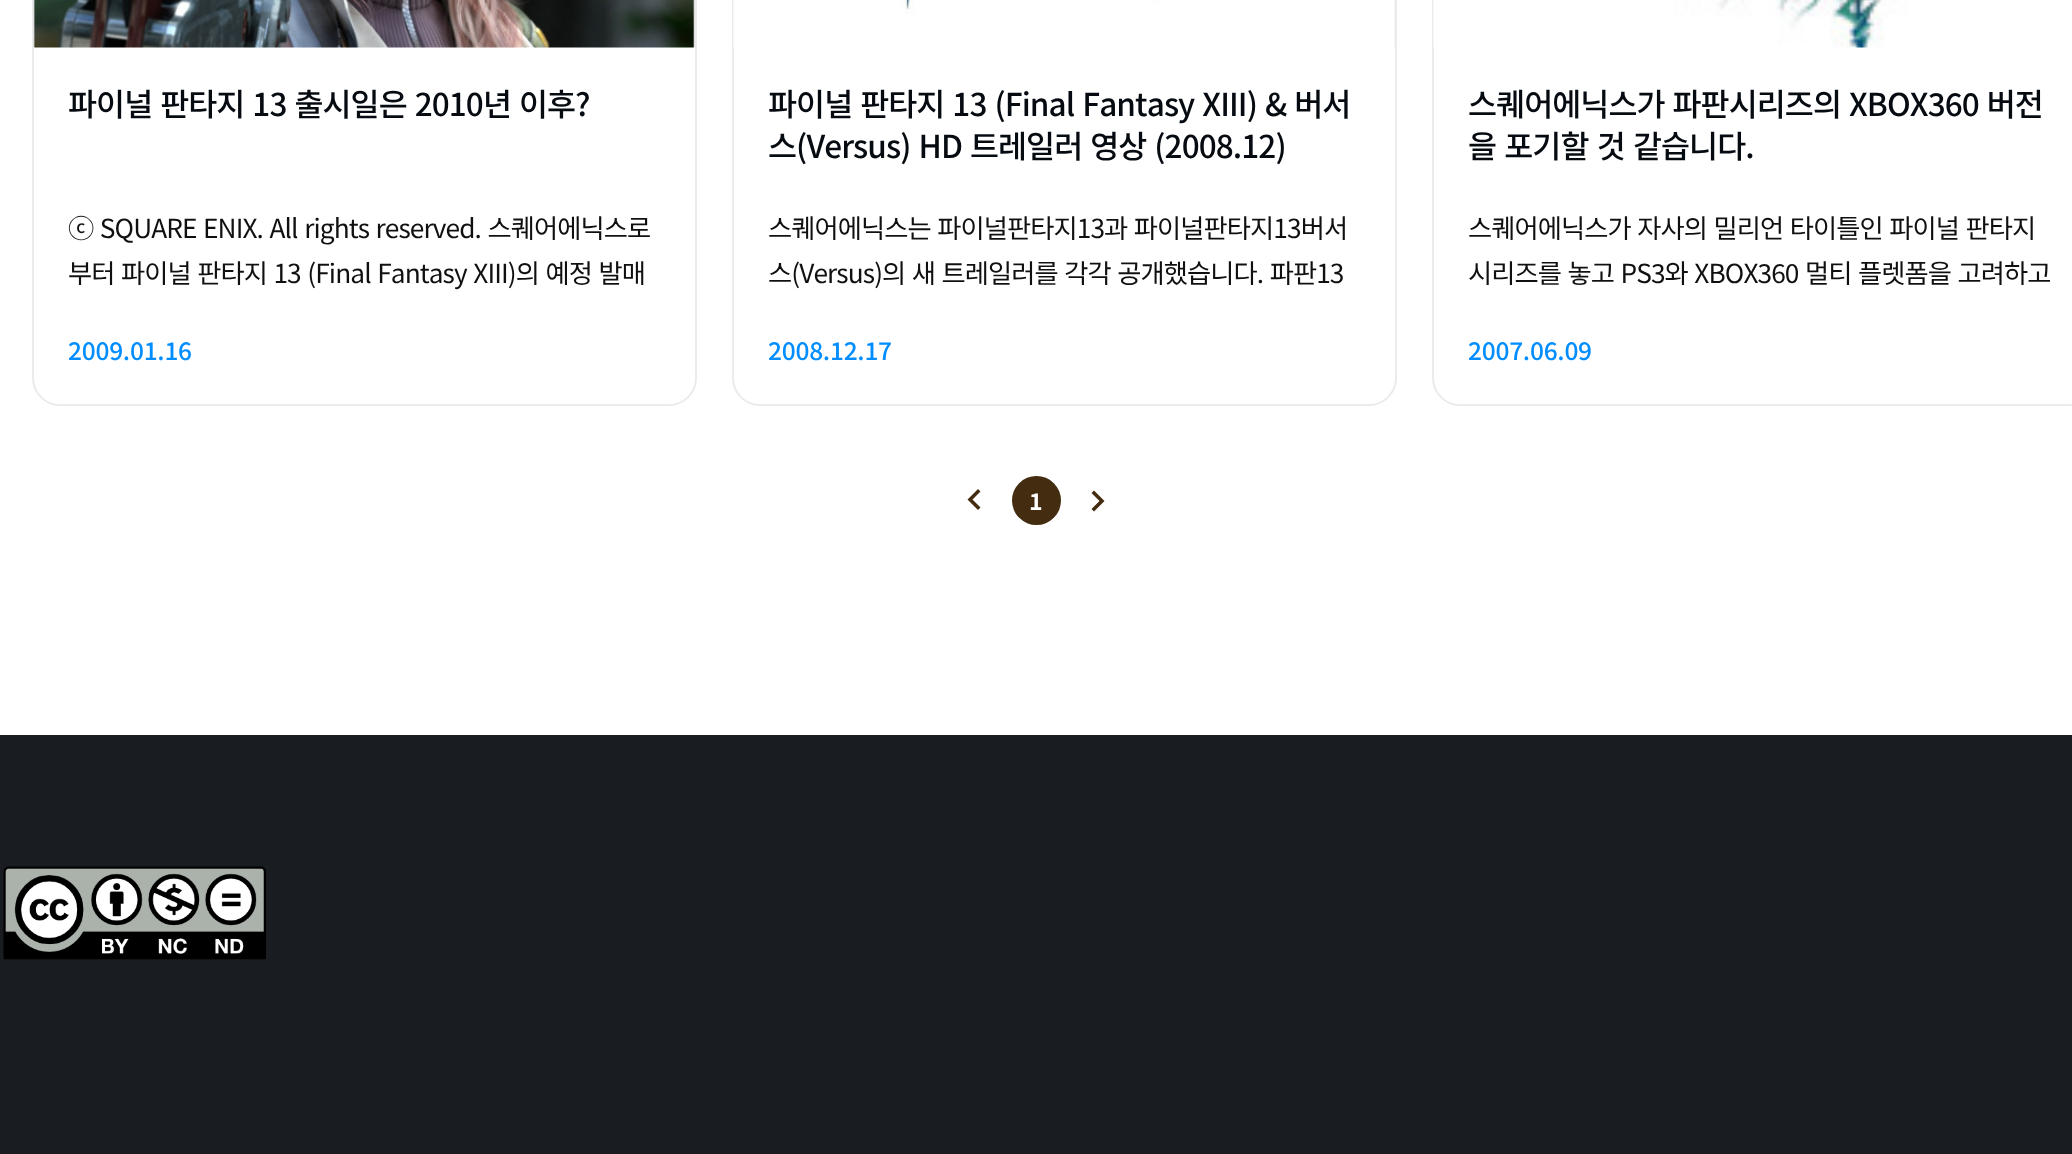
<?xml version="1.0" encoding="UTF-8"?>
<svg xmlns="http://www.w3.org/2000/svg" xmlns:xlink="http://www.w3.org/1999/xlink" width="2072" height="1154">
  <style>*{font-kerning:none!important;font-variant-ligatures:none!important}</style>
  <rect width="100%" height="100%" fill="#ffffff" />
  <rect x="33" y="-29" width="663" height="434" rx="27" fill="none" stroke="#ebebeb" stroke-width="2" />
  <rect x="34" width="661" height="47" fill="#e9e9e9" />
  <image x="33" y="0" width="662" height="48" xlink:href="image1.png" />
  <rect x="733" y="-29" width="663" height="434" rx="27" fill="none" stroke="#ebebeb" stroke-width="2" />
  <rect x="734" width="661" height="47" fill="#e9e9e9" />
  <image x="733" y="0" width="662" height="48" xlink:href="image2.png" />
  <rect x="1433" y="-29" width="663" height="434" rx="27" fill="none" stroke="#ebebeb" stroke-width="2" />
  <image x="1433" y="0" width="639" height="48" xlink:href="image3.png" />
  <path d="M 980.5 491.5 l -2.5 -2.5 l -10.5 10.5 l 10.5 10.5 l 2.5 -2.5 l -8 -8 z" fill="#432c10" />
  <circle cx="1036.5" cy="500.5" r="24.5" fill="#432c10" />
  <path d="M 1091.5 509 l 8 -8 l -8 -8 l 2.5 -2.5 l 10.5 10.5 l -10.5 10.5 z" fill="#432c10" />
  <rect y="735" width="2072" height="419" fill="#191c20" />
  <image x="3" y="866" width="263" height="94" xlink:href="image4.png" />
  <text x="68" y="116" word-spacing="1.75" style="font-family: Noto Sans KR; font-size: 31.5px; font-weight: 500; letter-spacing: -0.9px; fill: #060b11">파이널 판타지 13 출시일은 2010년 이후?</text>
  <text x="68" y="238" word-spacing="1.5" style="font-family: Noto Sans KR; font-size: 26.25px; letter-spacing: -0.9px; fill: #101010">ⓒ SQUARE ENIX. All rights reserved. 스퀘어에닉스로</text>
  <text x="68" y="283" word-spacing="1.5" style="font-family: Noto Sans KR; font-size: 26.25px; letter-spacing: -0.9px; fill: #101010">부터 파이널 판타지 13 (Final Fantasy XIII)의 예정 발매</text>
  <text x="68" y="360" style="font-family: Noto Sans KR; font-size: 24.5px; font-weight: 500; letter-spacing: -0.25px; fill: #008dff">2009.01.16</text>
  <text x="768" y="116" word-spacing="1.75" style="font-family: Noto Sans KR; font-size: 31.5px; font-weight: 500; letter-spacing: -0.9px; fill: #060b11">파이널 판타지 13 (Final Fantasy XIII) &amp; 버서</text>
  <text x="768" y="158" word-spacing="1.75" style="font-family: Noto Sans KR; font-size: 31.5px; font-weight: 500; letter-spacing: -0.9px; fill: #060b11">스(Versus) HD 트레일러 영상 (2008.12)</text>
  <text x="768" y="238" word-spacing="1.5" style="font-family: Noto Sans KR; font-size: 26.25px; letter-spacing: -0.9px; fill: #101010">스퀘어에닉스는 파이널판타지13과 파이널판타지13버서</text>
  <text x="768" y="283" word-spacing="1.5" style="font-family: Noto Sans KR; font-size: 26.25px; letter-spacing: -0.9px; fill: #101010">스(Versus)의 새 트레일러를 각각 공개했습니다. 파판13</text>
  <text x="768" y="360" style="font-family: Noto Sans KR; font-size: 24.5px; font-weight: 500; letter-spacing: -0.25px; fill: #008dff">2008.12.17</text>
  <text x="1468" y="116" word-spacing="1.75" style="font-family: Noto Sans KR; font-size: 31.5px; font-weight: 500; letter-spacing: -0.9px; fill: #060b11">스퀘어에닉스가 파판시리즈의 XBOX360 버전</text>
  <text x="1468" y="158" word-spacing="2" style="font-family: Noto Sans KR; font-size: 31.5px; font-weight: 500; letter-spacing: -0.9px; fill: #060b11">을 포기할 것 같습니다.</text>
  <text x="1468" y="238" word-spacing="1.5" style="font-family: Noto Sans KR; font-size: 26.25px; letter-spacing: -0.9px; fill: #101010">스퀘어에닉스가 자사의 밀리언 타이틀인 파이널 판타지</text>
  <text x="1468" y="283" word-spacing="1.5" style="font-family: Noto Sans KR; font-size: 26.25px; letter-spacing: -0.9px; fill: #101010">시리즈를 놓고 PS3와 XBOX360 멀티 플렛폼을 고려하고</text>
  <text x="1468" y="360" style="font-family: Noto Sans KR; font-size: 24.5px; font-weight: 500; letter-spacing: -0.25px; fill: #008dff">2007.06.09</text>
  <text x="1029" y="510" style="font-family: Noto Sans KR; font-size: 23px; font-weight: bold; fill: #ffffff">1</text>
</svg>
